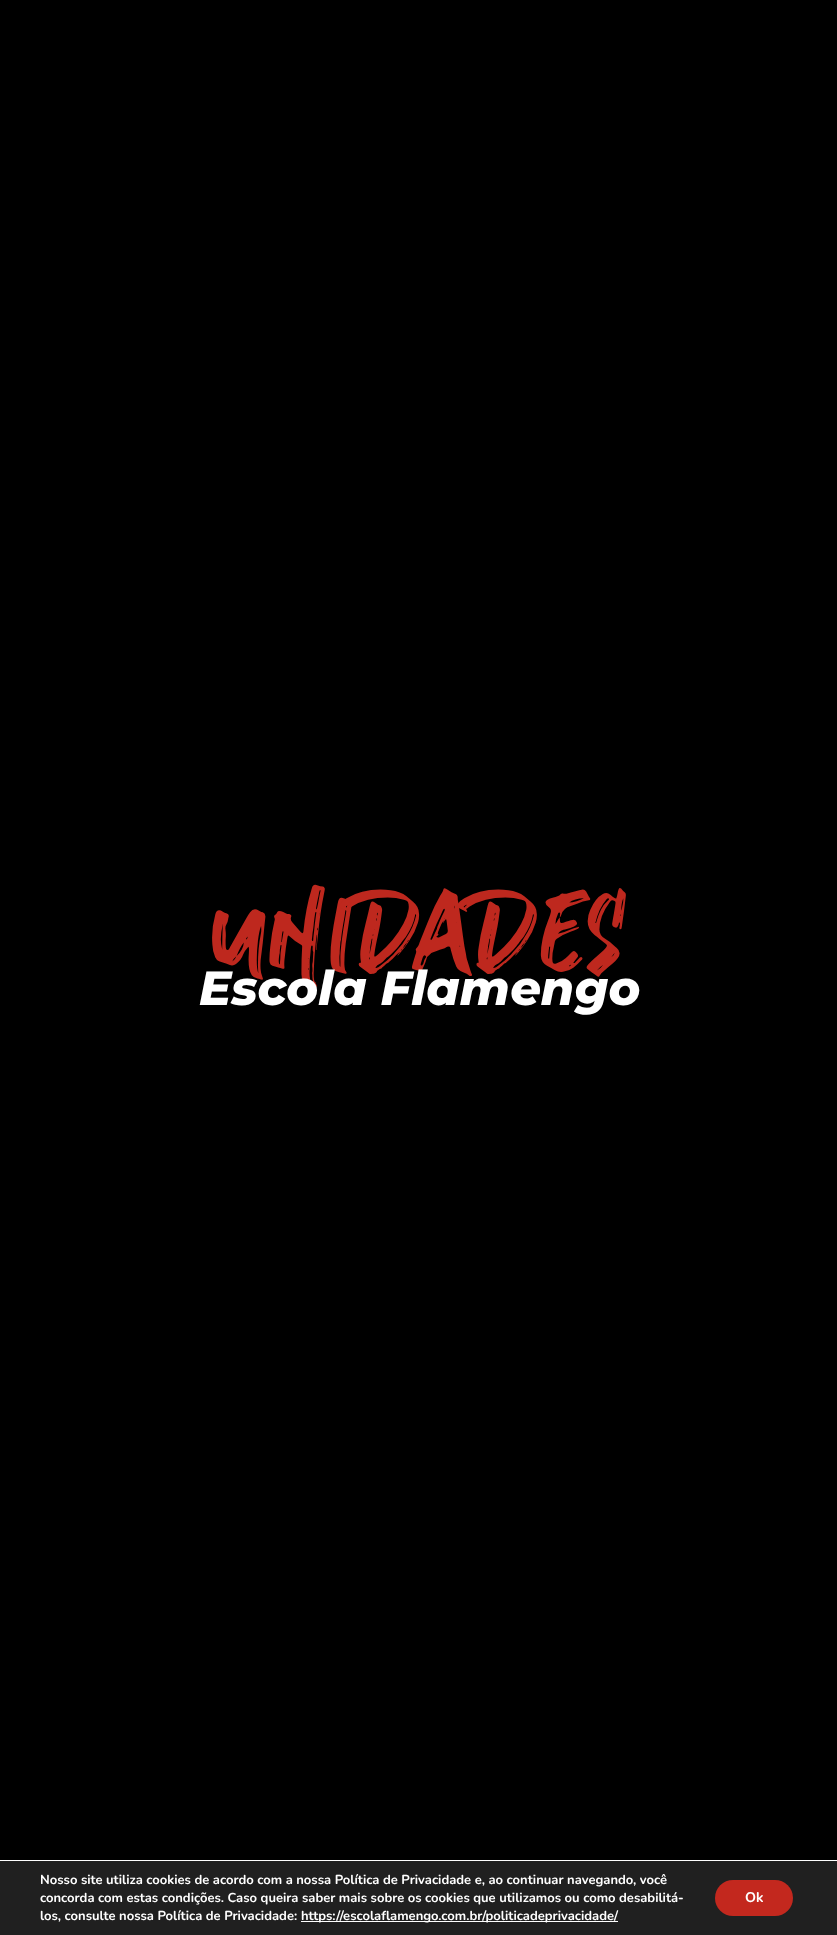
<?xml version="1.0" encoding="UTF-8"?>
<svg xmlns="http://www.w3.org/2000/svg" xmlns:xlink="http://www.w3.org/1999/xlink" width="837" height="1935">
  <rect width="100%" height="100%" fill="#000000" />
  <rect y="1861" width="837" height="74" fill="#202020" />
  <rect y="1860" width="837" height="1" fill="#ffffff" />
  <rect x="301" y="1921" width="317" height="1" fill="#ffffff" />
  <rect x="715" y="1880" width="78" height="36" rx="18" fill="#c3281e" />
  <text x="212" y="973" style="font-family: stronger; font-size: 160px; fill: #be281e">UNIDADES</text>
  <text x="199" y="1005" style="font-family: Montserrat; font-size: 48px; font-weight: 800; font-style: italic; fill: #ffffff">Escola Flamengo</text>
  <text x="40" y="1884" style="font-family: Nunito; font-size: 13px; font-weight: bold; fill: #ffffff">Nosso site utiliza cookies de acordo com a nossa Política de Privacidade e, ao continuar navegando, você</text>
  <text x="40" y="1902" style="font-family: Nunito; font-size: 13px; font-weight: bold; fill: #ffffff">concorda com estas condições. Caso queira saber mais sobre os cookies que utilizamos ou como desabilitá-</text>
  <text x="40" y="1920" style="font-family: Nunito; font-size: 13px; font-weight: bold; fill: #ffffff">los, consulte nossa Política de Privacidade:</text>
  <text x="301" y="1920" style="font-family: Nunito; font-size: 13px; font-weight: bold; fill: #ffffff">https://escolaflamengo.com.br/politicadeprivacidade/</text>
  <text x="745" y="1902" style="font-family: Nunito; font-size: 14px; font-weight: bold; fill: #ffffff">Ok</text>
</svg>
